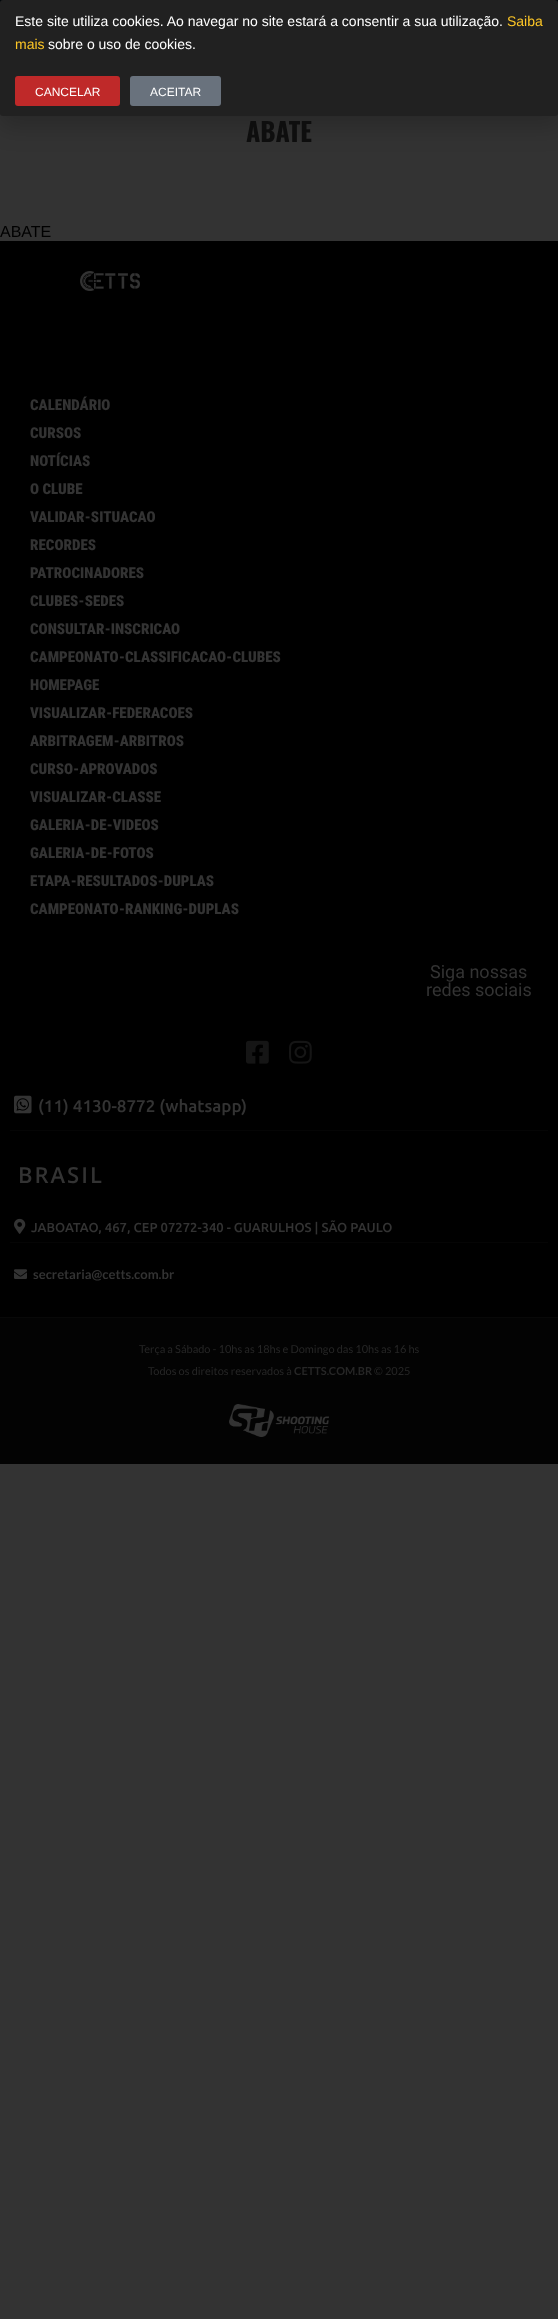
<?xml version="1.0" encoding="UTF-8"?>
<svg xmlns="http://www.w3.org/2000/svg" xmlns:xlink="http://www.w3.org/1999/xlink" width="558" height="2319">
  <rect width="100%" height="100%" fill="#333333" />
  <rect width="558" height="3" fill="#02070a" />
  <rect x="-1" y="5" width="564" height="122" rx="6" fill="#000000" fill-opacity="0.2" filter="blur(11.5px)" />
  <rect width="558" height="116" rx="3" fill="#212121" />
  <rect x="15" y="76" width="105" height="30" rx="3" fill="#bf2929" />
  <rect x="130" y="76" width="91" height="30" rx="3" fill="#69727d" />
  <rect y="241" width="558" height="1076" fill="#000000" />
  <image x="80" y="271" width="60" height="20" xlink:href="image1.png" />
  <image x="246" y="1040" width="23" height="24" xlink:href="image2.png" />
  <image x="289" y="1040" width="23" height="24" xlink:href="image3.png" />
  <rect x="10" y="1130" width="538" height="1" fill="#050505" />
  <image x="14" y="1095" width="18" height="19" xlink:href="image4.png" />
  <rect x="10" y="1242" width="538" height="1" fill="#050505" />
  <image x="14" y="1218" width="12" height="16" xlink:href="image5.png" />
  <image x="14" y="1269" width="13" height="10" xlink:href="image6.png" />
  <rect y="1318" width="558" height="146" fill="#030303" />
  <rect y="1317" width="558" height="1" fill="#080808" />
  <image x="229" y="1404" width="100" height="33" xlink:href="image7.png" />
  <text x="15" y="26" style="font-family: Liberation Sans; font-size: 14px; fill: #ffffff">Este site utiliza cookies. Ao navegar no site estará a consentir a sua utilização.</text>
  <text x="507" y="26" style="font-family: Liberation Sans; font-size: 14px; fill: #fec726">Saiba</text>
  <text x="15" y="49" style="font-family: Liberation Sans; font-size: 14px; fill: #fec726">mais</text>
  <text x="48" y="49" style="font-family: Liberation Sans; font-size: 14px; fill: #ffffff">sobre o uso de cookies.</text>
  <text x="35" y="96" style="font-family: Liberation Sans; font-size: 12px; fill: #ffffff">CANCELAR</text>
  <text x="150" y="96" style="font-family: Liberation Sans; font-size: 12px; fill: #ffffff">ACEITAR</text>
  <text x="246" y="142" style="font-family: Oswald; font-size: 26px; font-weight: bold; fill: #0e0e0e">ABATE</text>
  <text x="0" y="237" style="font-family: Liberation Sans; font-size: 16px; fill: #000000">ABATE</text>
  <text x="30" y="410" style="font-family: Roboto Condensed; font-size: 15px; font-weight: 900; fill: #333333">CALENDÁRIO</text>
  <text x="30" y="438" style="font-family: Roboto Condensed; font-size: 15px; font-weight: 900; fill: #333333">CURSOS</text>
  <text x="30" y="466" style="font-family: Roboto Condensed; font-size: 15px; font-weight: 900; fill: #333333">NOTÍCIAS</text>
  <text x="30" y="494" style="font-family: Roboto Condensed; font-size: 15px; font-weight: 900; fill: #333333">O CLUBE</text>
  <text x="30" y="522" style="font-family: Roboto Condensed; font-size: 15px; font-weight: 900; fill: #333333">VALIDAR-SITUACAO</text>
  <text x="30" y="550" style="font-family: Roboto Condensed; font-size: 15px; font-weight: 900; fill: #333333">RECORDES</text>
  <text x="30" y="578" style="font-family: Roboto Condensed; font-size: 15px; font-weight: 900; fill: #333333">PATROCINADORES</text>
  <text x="30" y="606" style="font-family: Roboto Condensed; font-size: 15px; font-weight: 900; fill: #333333">CLUBES-SEDES</text>
  <text x="30" y="634" style="font-family: Roboto Condensed; font-size: 15px; font-weight: 900; fill: #333333">CONSULTAR-INSCRICAO</text>
  <text x="30" y="662" style="font-family: Roboto Condensed; font-size: 15px; font-weight: 900; fill: #333333">CAMPEONATO-CLASSIFICACAO-CLUBES</text>
  <text x="30" y="690" style="font-family: Roboto Condensed; font-size: 15px; font-weight: 900; fill: #333333">HOMEPAGE</text>
  <text x="30" y="718" style="font-family: Roboto Condensed; font-size: 15px; font-weight: 900; fill: #333333">VISUALIZAR-FEDERACOES</text>
  <text x="30" y="746" style="font-family: Roboto Condensed; font-size: 15px; font-weight: 900; fill: #333333">ARBITRAGEM-ARBITROS</text>
  <text x="30" y="774" style="font-family: Roboto Condensed; font-size: 15px; font-weight: 900; fill: #333333">CURSO-APROVADOS</text>
  <text x="30" y="802" style="font-family: Roboto Condensed; font-size: 15px; font-weight: 900; fill: #333333">VISUALIZAR-CLASSE</text>
  <text x="30" y="830" style="font-family: Roboto Condensed; font-size: 15px; font-weight: 900; fill: #333333">GALERIA-DE-VIDEOS</text>
  <text x="30" y="858" style="font-family: Roboto Condensed; font-size: 15px; font-weight: 900; fill: #333333">GALERIA-DE-FOTOS</text>
  <text x="30" y="886" style="font-family: Roboto Condensed; font-size: 15px; font-weight: 900; fill: #333333">ETAPA-RESULTADOS-DUPLAS</text>
  <text x="30" y="914" style="font-family: Roboto Condensed; font-size: 15px; font-weight: 900; fill: #333333">CAMPEONATO-RANKING-DUPLAS</text>
  <text x="430" y="978" style="font-family: Roboto; font-size: 18px; fill: #333333">Siga nossas</text>
  <text x="426" y="996" style="font-family: Roboto; font-size: 18px; fill: #333333">redes sociais</text>
  <text x="38" y="1112" style="font-family: Ubuntu; font-size: 17px; font-weight: 500; fill: #333333">(11) 4130-8772 (whatsapp)</text>
  <text x="18" y="1183" style="font-family: Open Sans; font-size: 22px; font-weight: 600; letter-spacing: 2px; fill: #333333">BRASIL</text>
  <text x="31" y="1232" style="font-family: Ubuntu; font-size: 13px; font-weight: 500; fill: #333333">JABOATAO, 467, CEP 07272-340 - GUARULHOS | SÃO PAULO</text>
  <text x="33" y="1279" style="font-family: Lato; font-size: 13px; font-weight: bold; fill: #333333">secretaria@cetts.com.br</text>
  <text x="139" y="1353" style="font-family: Lato; font-size: 11px; fill: #262626">Terça a Sábado - 10hs as 18hs e Domingo das 10hs as 16 hs</text>
  <text x="148" y="1375" style="font-family: Lato; font-size: 11px; fill: #262626">Todos os direitos reservados à</text>
  <text x="294" y="1375" style="font-family: Lato; font-size: 11px; font-weight: bold; fill: #262626">CETTS.COM.BR</text>
  <text x="374" y="1375" style="font-family: Lato; font-size: 11px; fill: #262626">© 2025</text>
</svg>
